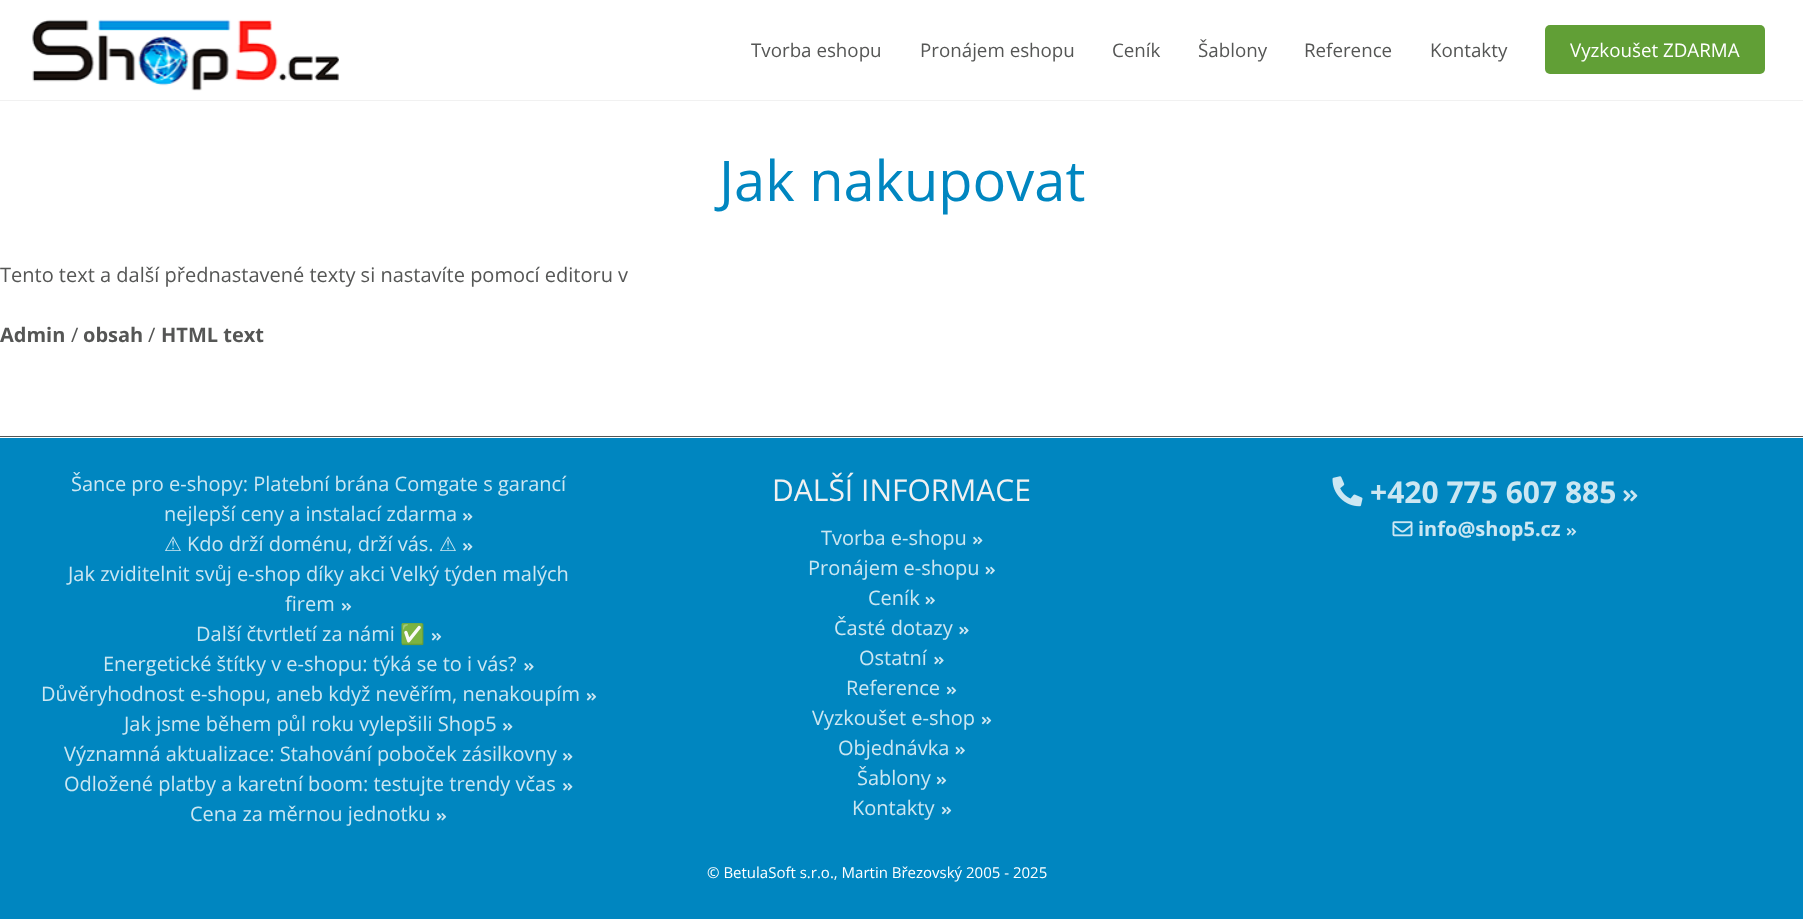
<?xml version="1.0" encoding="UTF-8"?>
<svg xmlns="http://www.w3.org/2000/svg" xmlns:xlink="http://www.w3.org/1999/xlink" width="1803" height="919">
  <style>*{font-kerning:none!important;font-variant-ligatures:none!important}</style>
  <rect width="100%" height="100%" fill="#ffffff" />
  <rect y="100" width="1803" height="1" fill="#f1f1f1" />
  <image x="32" y="19" width="307" height="72" xlink:href="image1.png" />
  <rect x="1545" y="25" width="220" height="49" rx="5" fill="#619f36" />
  <rect y="436" width="1803" height="1" fill="#555655" />
  <rect y="438" width="1803" height="481" fill="#0086c0" />
  <image x="463" y="513" width="10" height="8" xlink:href="image2.png" />
  <image x="463" y="543" width="10" height="8" xlink:href="image2.png" />
  <image x="341" y="603" width="11" height="8" xlink:href="image3.png" />
  <image x="431" y="633" width="11" height="8" xlink:href="image3.png" />
  <image x="524" y="663" width="10" height="8" xlink:href="image4.png" />
  <image x="586" y="693" width="11" height="8" xlink:href="image3.png" />
  <image x="503" y="723" width="10" height="8" xlink:href="image2.png" />
  <image x="563" y="753" width="10" height="8" xlink:href="image2.png" />
  <image x="563" y="783" width="10" height="8" xlink:href="image2.png" />
  <image x="436" y="813" width="11" height="8" xlink:href="image3.png" />
  <image x="973" y="536" width="10" height="9" xlink:href="image5.png" />
  <image x="985" y="566" width="10" height="9" xlink:href="image6.png" />
  <image x="925" y="596" width="10" height="9" xlink:href="image6.png" />
  <image x="959" y="626" width="10" height="9" xlink:href="image7.png" />
  <image x="934" y="656" width="10" height="9" xlink:href="image7.png" />
  <image x="946" y="686" width="11" height="9" xlink:href="image8.png" />
  <image x="981" y="716" width="11" height="9" xlink:href="image8.png" />
  <image x="955" y="746" width="10" height="9" xlink:href="image6.png" />
  <image x="936" y="776" width="11" height="9" xlink:href="image8.png" />
  <image x="941" y="806" width="11" height="9" xlink:href="image8.png" />
  <image x="1332" y="476" width="31" height="31" xlink:href="image9.png" />
  <image x="1623" y="490" width="15" height="12" xlink:href="image10.png" />
  <image x="1392" y="521" width="21" height="16" xlink:href="image11.png" />
  <image x="1566" y="528" width="11" height="8" xlink:href="image3.png" />
  <text x="751" y="57" style="font-family: Open Sans; font-size: 18.75px; fill: #555655">Tvorba eshopu</text>
  <text x="920" y="57" style="font-family: Open Sans; font-size: 18.75px; fill: #555655">Pronájem eshopu</text>
  <text x="1112" y="57" style="font-family: Open Sans; font-size: 18.75px; fill: #555655">Ceník</text>
  <text x="1198" y="57" style="font-family: Open Sans; font-size: 18.75px; fill: #555655">Šablony</text>
  <text x="1304" y="57" style="font-family: Open Sans; font-size: 18.75px; fill: #555655">Reference</text>
  <text x="1430" y="57" style="font-family: Open Sans; font-size: 18.75px; fill: #555655">Kontakty</text>
  <text x="1570" y="57" style="font-family: Open Sans; font-size: 18.75px; fill: #ffffff">Vyzkoušet ZDARMA</text>
  <text x="719" y="201" style="font-family: Open Sans; font-size: 56px; fill: #0086c0">Jak nakupovat</text>
  <text x="0" y="282" style="font-family: Open Sans; font-size: 20px; fill: #555655">Tento text a další přednastavené texty si nastavíte pomocí editoru v</text>
  <text x="0" y="342" style="font-family: Open Sans; font-size: 20px; font-weight: bold; fill: #555655">Admin</text>
  <text x="71" y="342" style="font-family: Open Sans; font-size: 20px; fill: #555655">/</text>
  <text x="83" y="342" style="font-family: Open Sans; font-size: 20px; font-weight: bold; fill: #555655">obsah</text>
  <text x="148" y="342" style="font-family: Open Sans; font-size: 20px; fill: #555655">/</text>
  <text x="161" y="342" style="font-family: Open Sans; font-size: 20px; font-weight: bold; fill: #555655">HTML text</text>
  <text x="71" y="491" style="font-family: Open Sans; font-size: 20px; fill: #cce7f2">Šance pro e-shopy: Platební brána Comgate s garancí</text>
  <text x="164" y="521" style="font-family: Open Sans; font-size: 20px; fill: #cce7f2">nejlepší ceny a instalací zdarma</text>
  <text x="164" y="551" style="font-family: DejaVu Sans; font-size: 20px; fill: #cce7f2">⚠</text>
  <text x="187" y="551" style="font-family: Open Sans; font-size: 20px; fill: #cce7f2">Kdo drží doménu, drží vás.</text>
  <text x="439" y="551" style="font-family: DejaVu Sans; font-size: 20px; fill: #cce7f2">⚠</text>
  <text x="68" y="581" style="font-family: Open Sans; font-size: 20px; fill: #cce7f2">Jak zviditelnit svůj e-shop díky akci Velký týden malých</text>
  <text x="285" y="611" style="font-family: Open Sans; font-size: 20px; fill: #cce7f2">firem</text>
  <text x="196" y="641" style="font-family: Open Sans; font-size: 20px; fill: #cce7f2">Další čtvrtletí za námi</text>
  <text x="400" y="641" style="font-family: Noto Color Emoji; font-size: 20px; fill: #cce7f2">✅</text>
  <text x="103" y="671" style="font-family: Open Sans; font-size: 20px; fill: #cce7f2">Energetické štítky v e-shopu: týká se to i vás?</text>
  <text x="41" y="701" style="font-family: Open Sans; font-size: 20px; fill: #cce7f2">Důvěryhodnost e-shopu, aneb když nevěřím, nenakoupím</text>
  <text x="124" y="731" style="font-family: Open Sans; font-size: 20px; fill: #cce7f2">Jak jsme během půl roku vylepšili Shop5</text>
  <text x="64" y="761" style="font-family: Open Sans; font-size: 20px; fill: #cce7f2">Významná aktualizace: Stahování poboček zásilkovny</text>
  <text x="64" y="791" style="font-family: Open Sans; font-size: 20px; fill: #cce7f2">Odložené platby a karetní boom: testujte trendy včas</text>
  <text x="190" y="821" style="font-family: Open Sans; font-size: 20px; fill: #cce7f2">Cena za měrnou jednotku</text>
  <text x="772" y="501" style="font-family: Open Sans; font-size: 30px; fill: #f1f1f1">DALŠÍ INFORMACE</text>
  <text x="821" y="545" style="font-family: Open Sans; font-size: 20px; fill: #cce7f2">Tvorba e-shopu</text>
  <text x="808" y="575" style="font-family: Open Sans; font-size: 20px; fill: #cce7f2">Pronájem e-shopu</text>
  <text x="868" y="605" style="font-family: Open Sans; font-size: 20px; fill: #cce7f2">Ceník</text>
  <text x="834" y="635" style="font-family: Open Sans; font-size: 20px; fill: #cce7f2">Časté dotazy</text>
  <text x="859" y="665" style="font-family: Open Sans; font-size: 20px; fill: #cce7f2">Ostatní</text>
  <text x="846" y="695" style="font-family: Open Sans; font-size: 20px; fill: #cce7f2">Reference</text>
  <text x="812" y="725" style="font-family: Open Sans; font-size: 20px; fill: #cce7f2">Vyzkoušet e-shop</text>
  <text x="838" y="755" style="font-family: Open Sans; font-size: 20px; fill: #cce7f2">Objednávka</text>
  <text x="857" y="785" style="font-family: Open Sans; font-size: 20px; fill: #cce7f2">Šablony</text>
  <text x="852" y="815" style="font-family: Open Sans; font-size: 20px; fill: #cce7f2">Kontakty</text>
  <text x="1370" y="503" style="font-family: Open Sans; font-size: 30px; font-weight: bold; fill: #cce7f2">+420 775 607 885</text>
  <text x="1418" y="536" style="font-family: Open Sans; font-size: 20px; font-weight: bold; fill: #cce7f2">info@shop5.cz</text>
  <text x="707" y="878" style="font-family: Open Sans; font-size: 15px; fill: #ffffff">© BetulaSoft s.r.o., Martin Březovský 2005 - 2025</text>
</svg>
